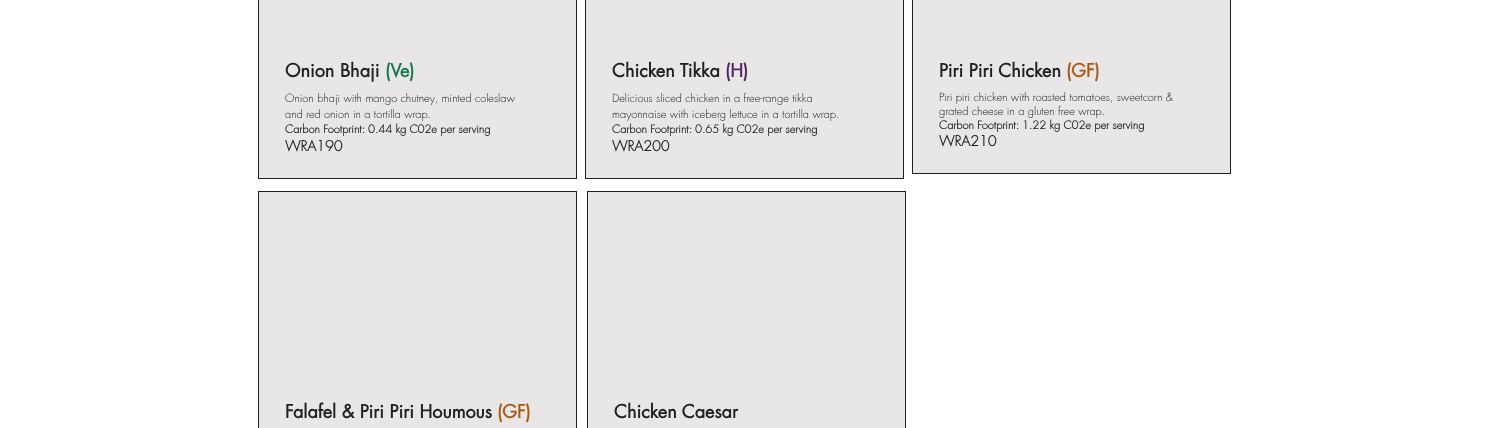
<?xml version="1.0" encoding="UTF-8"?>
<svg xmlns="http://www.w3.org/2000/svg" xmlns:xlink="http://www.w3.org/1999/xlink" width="1487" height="428">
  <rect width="100%" height="100%" fill="#ffffff" />
  <rect x="258.5" y="-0.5" width="318" height="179" fill="none" stroke="#212121" />
  <rect x="259" width="317" height="178" fill="#e8e6e6" />
  <rect x="585.5" y="-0.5" width="318" height="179" fill="none" stroke="#212121" />
  <rect x="586" width="317" height="178" fill="#e8e6e6" />
  <rect x="912.5" y="-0.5" width="318" height="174" fill="none" stroke="#212121" />
  <rect x="913" width="317" height="173" fill="#e8e6e6" />
  <rect x="258.5" y="191.5" width="318" height="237" fill="none" stroke="#212121" />
  <rect x="259" y="192" width="317" height="236" fill="#e8e6e6" />
  <rect x="587.5" y="191.5" width="318" height="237" fill="none" stroke="#212121" />
  <rect x="588" y="192" width="317" height="236" fill="#e8e6e6" />
  <text x="285" y="77" style="font-family: futura; font-size: 18px; font-weight: bold; fill: #212121">Onion Bhaji</text>
  <text x="385" y="77" style="font-family: futura; font-size: 18px; font-weight: bold; fill: #17784d">(Ve)</text>
  <text x="285" y="102" style="font-family: futura; font-size: 11px; font-weight: 300; fill: #212121">Onion bhaji with mango chutney, minted coleslaw</text>
  <text x="285" y="118" style="font-family: futura; font-size: 11px; font-weight: 300; fill: #212121">and red onion in a tortilla wrap.</text>
  <text x="285" y="133" style="font-family: 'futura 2'; font-size: 11px; font-weight: bold; fill: #212121">Carbon Footprint: 0.44 kg C02e per serving</text>
  <text x="285" y="151" style="font-family: 'futura 2'; font-size: 14px; font-weight: bold; fill: #212121">WRA190</text>
  <text x="612" y="77" style="font-family: futura; font-size: 18px; font-weight: bold; fill: #212121">Chicken Tikka</text>
  <text x="725" y="77" style="font-family: futura; font-size: 18px; font-weight: bold; fill: #522662">(H)</text>
  <text x="612" y="102" style="font-family: futura; font-size: 11px; font-weight: 300; fill: #212121">Delicious sliced chicken in a free-range tikka</text>
  <text x="612" y="118" style="font-family: futura; font-size: 11px; font-weight: 300; fill: #212121">mayonnaise with iceberg lettuce in a tortilla wrap.</text>
  <text x="612" y="133" style="font-family: 'futura 2'; font-size: 11px; font-weight: bold; fill: #212121">Carbon Footprint: 0.65 kg C02e per serving</text>
  <text x="612" y="151" style="font-family: 'futura 2'; font-size: 14px; font-weight: bold; fill: #212121">WRA200</text>
  <text x="939" y="77" style="font-family: futura; font-size: 18px; font-weight: bold; fill: #212121">Piri Piri Chicken</text>
  <text x="1066" y="77" style="font-family: futura; font-size: 18px; font-weight: bold; fill: #aa5a12">(GF)</text>
  <text x="939" y="101" style="font-family: futura; font-size: 11px; font-weight: 300; fill: #212121">Piri piri chicken with roasted tomatoes, sweetcorn &amp;</text>
  <text x="939" y="115" style="font-family: futura; font-size: 11px; font-weight: 300; fill: #212121">grated cheese in a gluten free wrap.</text>
  <text x="939" y="129" style="font-family: 'futura 2'; font-size: 11px; font-weight: bold; fill: #212121">Carbon Footprint: 1.22 kg C02e per serving</text>
  <text x="939" y="146" style="font-family: 'futura 2'; font-size: 14px; font-weight: bold; fill: #212121">WRA210</text>
  <text x="285" y="418" style="font-family: futura; font-size: 18px; font-weight: bold; fill: #212121">Falafel &amp; Piri Piri Houmous</text>
  <text x="497" y="418" style="font-family: futura; font-size: 18px; font-weight: bold; fill: #aa5a12">(GF)</text>
  <text x="614" y="418" style="font-family: futura; font-size: 18px; font-weight: bold; fill: #212121">Chicken Caesar</text>
</svg>
